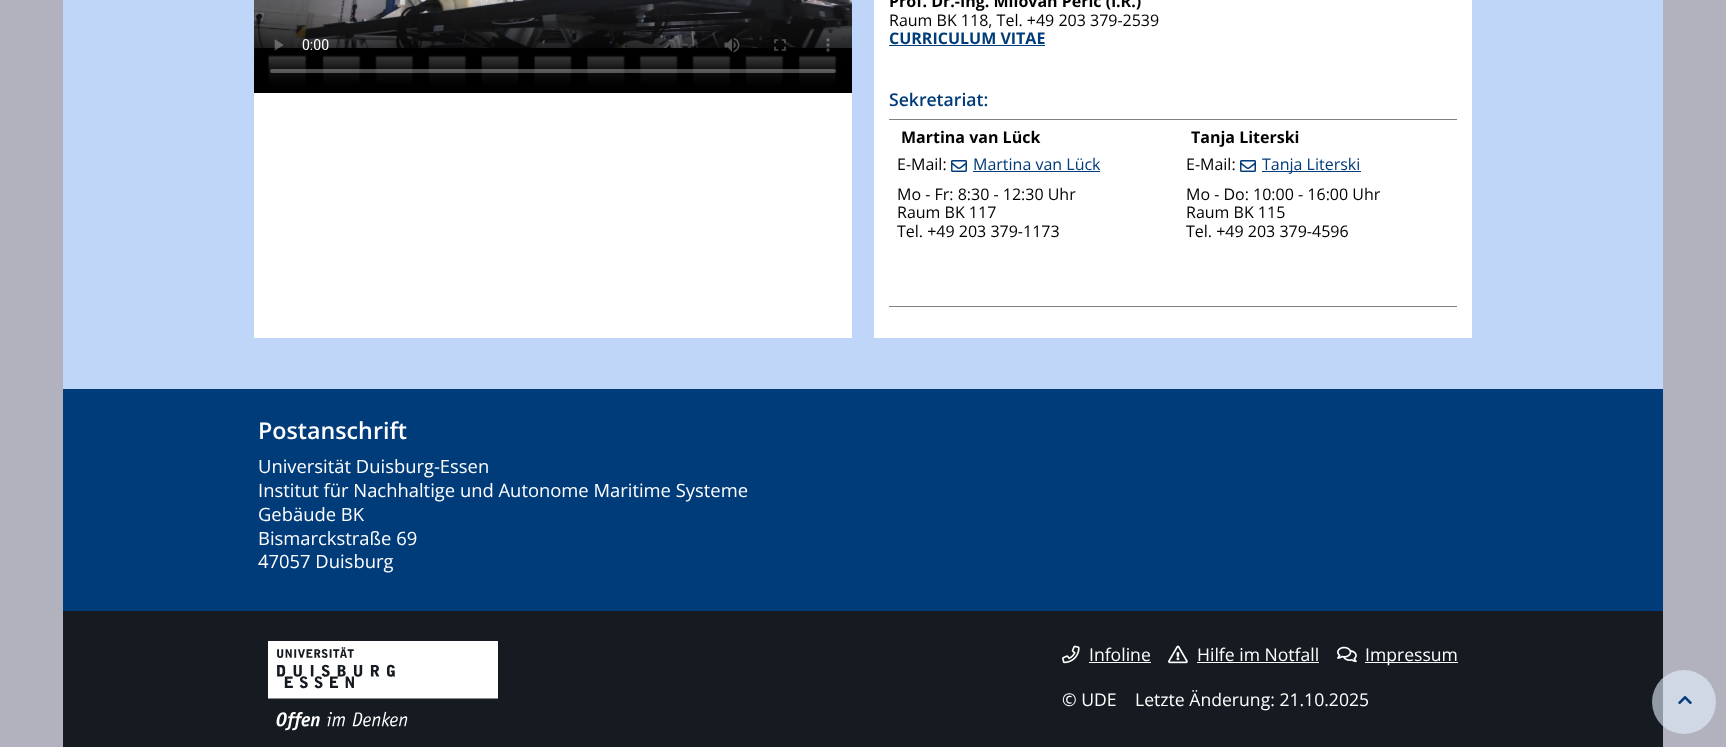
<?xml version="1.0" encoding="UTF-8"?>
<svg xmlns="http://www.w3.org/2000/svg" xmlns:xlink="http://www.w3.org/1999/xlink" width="1726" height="747">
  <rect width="100%" height="100%" fill="#b2b2be" />
  <rect x="63" width="1600" height="389" fill="#bfd6f8" />
  <rect x="254" y="93" width="598" height="245" fill="#ffffff" />
  <image x="254" y="0" width="598" height="93" xlink:href="image1.png" />
  <rect x="874" width="598" height="338" fill="#ffffff" />
  <rect x="889" y="45" width="156" height="1" fill="#003b7a" />
  <image x="951" y="160" width="16" height="12" xlink:href="image2.png" />
  <rect x="973" y="171" width="127" height="1" fill="#003b7a" />
  <rect x="889" y="119" width="568" height="1" fill="#808080" />
  <rect x="889" y="306" width="568" height="1" fill="#808080" />
  <image x="1240" y="160" width="16" height="12" xlink:href="image2.png" />
  <rect x="1262" y="171" width="99" height="1" fill="#003b7a" />
  <rect x="63" y="611" width="1600" height="136" fill="#151b20" />
  <circle cx="1684" cy="702" r="32" fill="#e4f0ff" fill-opacity="0.6" />
  <image x="1678" y="695" width="14" height="10" xlink:href="image3.png" />
  <rect x="63" y="389" width="1600" height="222" fill="#003b7a" />
  <image x="268" y="641" width="230" height="90" xlink:href="image4.png" />
  <image x="1062" y="645" width="18" height="19" xlink:href="image5.png" />
  <rect x="1089" y="662" width="62" height="1" fill="#ffffff" />
  <image x="1168" y="645" width="20" height="19" xlink:href="image6.png" />
  <rect x="1197" y="662" width="122" height="1" fill="#ffffff" />
  <image x="1337" y="646" width="20" height="17" xlink:href="image7.png" />
  <rect x="1365" y="662" width="93" height="1" fill="#ffffff" />
  <text x="889" y="7" style="font-family: Open Sans; font-size: 16px; font-weight: bold; fill: #000000">Prof. Dr.-Ing. Milovan Perić (i.R.)</text>
  <text x="889" y="26" style="font-family: Open Sans; font-size: 16px; fill: #000000">Raum BK 118, Tel. +49 203 379-2539</text>
  <text x="889" y="44" style="font-family: Open Sans; font-size: 16px; font-weight: bold; fill: #003b7a">CURRICULUM VITAE</text>
  <text x="889" y="106" style="font-family: Open Sans; font-size: 17.6px; font-weight: 600; fill: #003b7a">Sekretariat:</text>
  <text x="901" y="143" style="font-family: Open Sans; font-size: 16px; font-weight: bold; fill: #000000">Martina van Lück</text>
  <text x="897" y="170" style="font-family: Open Sans; font-size: 16px; fill: #000000">E-Mail:</text>
  <text x="973" y="170" style="font-family: Open Sans; font-size: 16px; fill: #003b7a">Martina van Lück</text>
  <text x="897" y="200" style="font-family: Open Sans; font-size: 16px; fill: #000000">Mo - Fr: 8:30 - 12:30 Uhr</text>
  <text x="897" y="218" style="font-family: Open Sans; font-size: 16px; fill: #000000">Raum BK 117</text>
  <text x="897" y="237" style="font-family: Open Sans; font-size: 16px; fill: #000000">Tel. +49 203 379-1173</text>
  <text x="1191" y="143" style="font-family: Open Sans; font-size: 16px; font-weight: bold; fill: #000000">Tanja Literski</text>
  <text x="1186" y="170" style="font-family: Open Sans; font-size: 16px; fill: #000000">E-Mail:</text>
  <text x="1262" y="170" style="font-family: Open Sans; font-size: 16px; fill: #003b7a">Tanja Literski</text>
  <text x="1186" y="200" style="font-family: Open Sans; font-size: 16px; fill: #000000">Mo - Do: 10:00 - 16:00 Uhr</text>
  <text x="1186" y="218" style="font-family: Open Sans; font-size: 16px; fill: #000000">Raum BK 115</text>
  <text x="1186" y="237" style="font-family: Open Sans; font-size: 16px; fill: #000000">Tel. +49 203 379-4596</text>
  <text x="258" y="439" style="font-family: Open Sans; font-size: 23.25px; font-weight: 600; fill: #ffffff">Postanschrift</text>
  <text x="258" y="473" style="font-family: Open Sans; font-size: 18.4px; fill: #ffffff">Universität Duisburg-Essen</text>
  <text x="258" y="497" style="font-family: Open Sans; font-size: 18.4px; fill: #ffffff">Institut für Nachhaltige und Autonome Maritime Systeme</text>
  <text x="258" y="521" style="font-family: Open Sans; font-size: 18.4px; fill: #ffffff">Gebäude BK</text>
  <text x="258" y="545" style="font-family: Open Sans; font-size: 18.4px; fill: #ffffff">Bismarckstraße 69</text>
  <text x="258" y="568" style="font-family: Open Sans; font-size: 18.4px; fill: #ffffff">47057 Duisburg</text>
  <text x="1089" y="661" style="font-family: Open Sans; font-size: 17.6px; fill: #ffffff">Infoline</text>
  <text x="1197" y="661" style="font-family: Open Sans; font-size: 17.6px; fill: #ffffff">Hilfe im Notfall</text>
  <text x="1365" y="661" style="font-family: Open Sans; font-size: 17.6px; fill: #ffffff">Impressum</text>
  <text x="1062" y="706" style="font-family: Open Sans; font-size: 17.6px; fill: #ffffff">© UDE</text>
  <text x="1135" y="706" style="font-family: Open Sans; font-size: 17.6px; fill: #ffffff">Letzte Änderung: 21.10.2025</text>
</svg>
